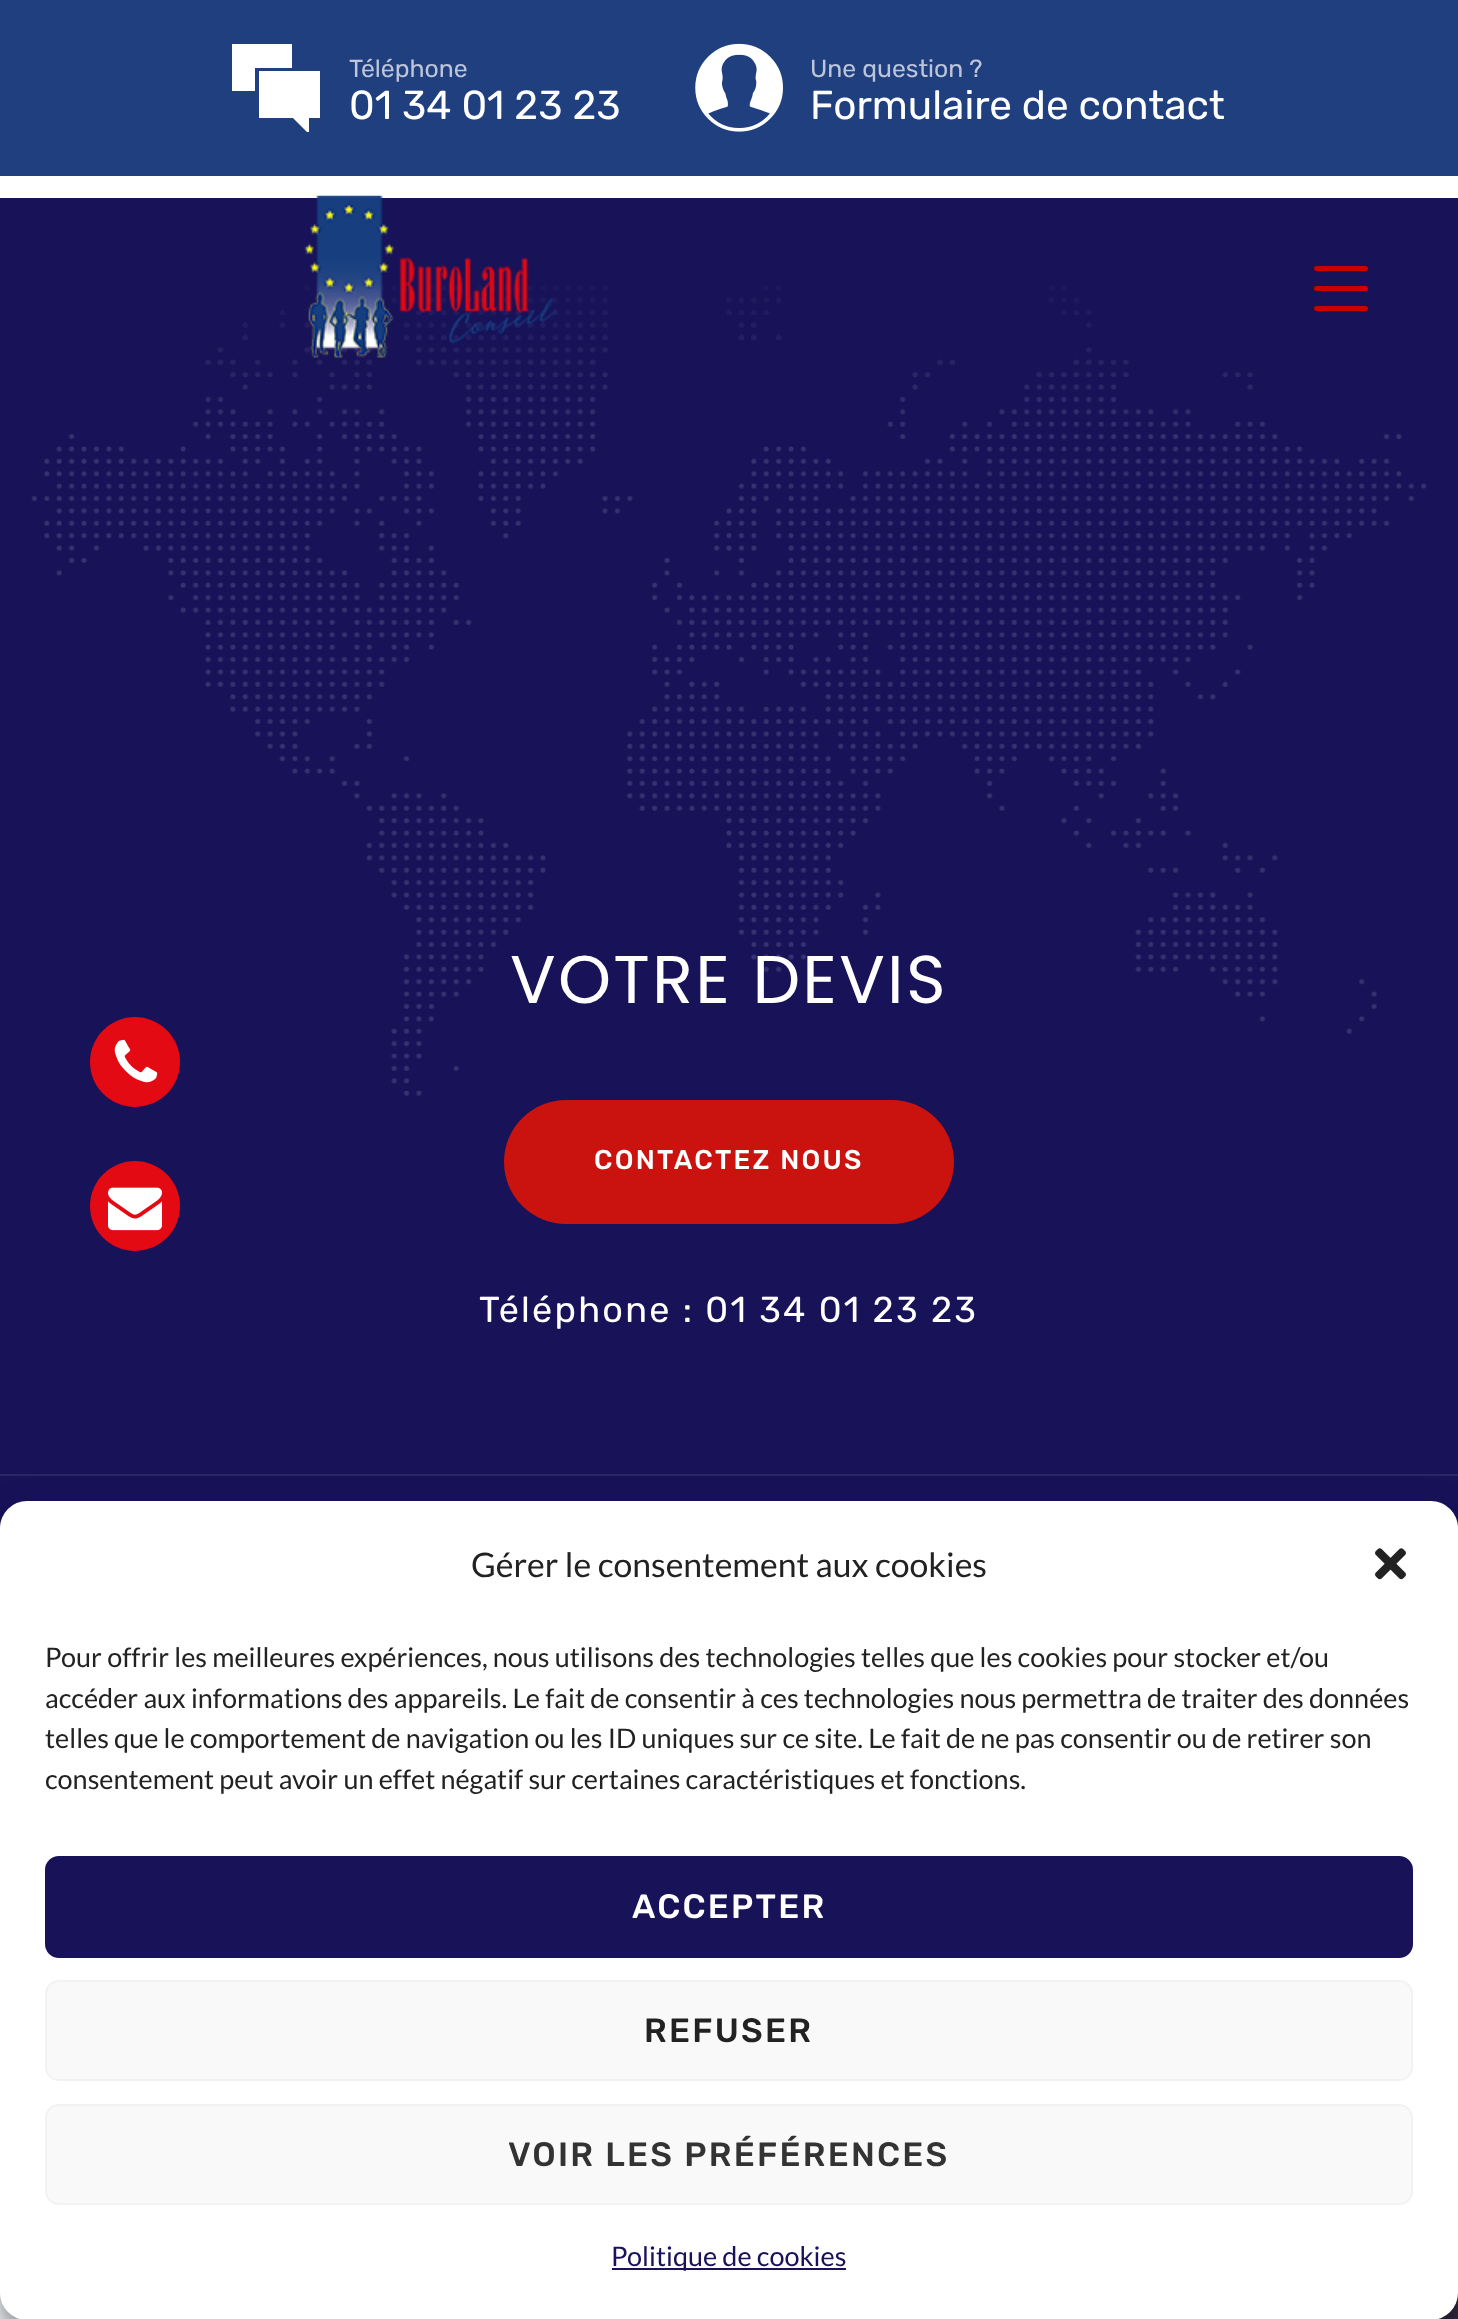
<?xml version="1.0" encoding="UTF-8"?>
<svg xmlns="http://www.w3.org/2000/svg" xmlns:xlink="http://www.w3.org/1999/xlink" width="1458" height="2319">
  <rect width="100%" height="100%" fill="#f3f6f9" />
  <rect y="198" width="1458" height="1330" fill="#181259" />
  <image x="31" y="285" width="1396" height="811" xlink:href="image5.png" />
  <circle cx="135" cy="1062" r="45" fill="#e30a13" />
  <image x="114" y="1039" width="44" height="44" xlink:href="image1.png" />
  <circle cx="135" cy="1206" r="45" fill="#e30a13" />
  <image x="108" y="1187" width="54" height="44" xlink:href="image2.png" />
  <rect y="176" width="1458" height="22" fill="#ffffff" />
  <rect width="1458" height="176" fill="#1f3f7f" />
  <path d="M 292 44 v 24 h -37 v 23 h -23 v -47 z m -33 27 h 61 v 47 h -11 v 14 h -2 l -14 -14 h -34 z" fill="#ffffff" />
  <image x="695" y="43" width="88" height="89" xlink:href="image3.png" />
  <image x="304" y="195" width="253" height="163" xlink:href="image4.png" />
  <rect x="1314" y="266" width="54" height="5" rx="2.5" fill="#ca0000" />
  <rect x="1314" y="306" width="54" height="5" rx="2.5" fill="#ca0000" />
  <rect x="1314" y="286" width="54" height="5" rx="2.5" fill="#ca0000" />
  <rect x="504" y="1100" width="450" height="124" rx="62" fill="#ca130f" />
  <rect y="1474" width="1458" height="2" fill="#2a2566" />
  <rect x="1438" y="2293" width="20" height="26" fill="#231834" />
  <image x="1438" y="2293" width="20" height="26" xlink:href="image7.png" />
  <rect y="1514" width="1458" height="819" rx="27" fill="#000000" fill-opacity="0.23" filter="blur(7px)" />
  <rect y="1523" width="1458" height="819" rx="27" fill="#000000" fill-opacity="0.19" filter="blur(22.5px)" />
  <rect y="1501" width="1458" height="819" rx="27" fill="#ffffff" />
  <image x="1375" y="1548" width="31" height="32" xlink:href="image6.png" />
  <rect x="46" y="1857" width="1366" height="100" rx="13" fill="#181259" stroke="#181259" stroke-width="2" />
  <rect x="46" y="1981" width="1366" height="99" rx="13" fill="#f9f9f9" stroke="#f2f2f2" stroke-width="2" />
  <rect x="46" y="2105" width="1366" height="99" rx="13" fill="#f9f9f9" stroke="#f2f2f2" stroke-width="2" />
  <rect x="612" y="2268" width="234" height="2" fill="#181259" />
  <text x="349" y="77" style="font-family: Rubik; font-size: 24.75px; fill: #bcc5d9">Téléphone</text>
  <text x="349" y="119" style="font-family: Rubik; font-size: 40.5px; fill: #ffffff">01 34 01 23 23</text>
  <text x="810" y="77" style="font-family: Rubik; font-size: 24.75px; fill: #bcc5d9">Une question ?</text>
  <text x="810" y="119" style="font-family: Rubik; font-size: 40.5px; fill: #ffffff">Formulaire de contact</text>
  <text x="510" y="1003" style="font-family: Poppins; font-size: 67.5px; letter-spacing: 2.25px; fill: #ffffff">VOTRE DEVIS</text>
  <text x="594" y="1169" style="font-family: Rubik; font-size: 27px; font-weight: 500; letter-spacing: 2.25px; fill: #ffffff">CONTACTEZ NOUS</text>
  <text x="479" y="1322" style="font-family: Rubik; font-size: 36px; letter-spacing: 2.25px; fill: #ffffff">Téléphone : 01 34 01 23 23</text>
  <text x="471" y="1577" style="font-family: Lato; font-size: 33.75px; fill: #222222">Gérer le consentement aux cookies</text>
  <text x="45" y="1667" style="font-family: Lato; font-size: 27px; fill: #222222">Pour offrir les meilleures expériences, nous utilisons des technologies telles que les cookies pour stocker et/ou</text>
  <text x="45" y="1708" style="font-family: Lato; font-size: 27px; fill: #222222">accéder aux informations des appareils. Le fait de consentir à ces technologies nous permettra de traiter des données</text>
  <text x="45" y="1748" style="font-family: Lato; font-size: 27px; fill: #222222">telles que le comportement de navigation ou les ID uniques sur ce site. Le fait de ne pas consentir ou de retirer son</text>
  <text x="45" y="1789" style="font-family: Lato; font-size: 27px; fill: #222222">consentement peut avoir un effet négatif sur certaines caractéristiques et fonctions.</text>
  <text x="632" y="1918" style="font-family: Rubik; font-size: 33.75px; font-weight: 500; letter-spacing: 2.25px; fill: #ffffff">ACCEPTER</text>
  <text x="644" y="2042" style="font-family: Rubik; font-size: 33.75px; font-weight: 500; letter-spacing: 2.25px; fill: #222222">REFUSER</text>
  <text x="508" y="2166" style="font-family: Rubik; font-size: 33.75px; font-weight: 500; letter-spacing: 2.25px; fill: #333333">VOIR LES PRÉFÉRENCES</text>
  <text x="611" y="2266" style="font-family: Lato; font-size: 27px; fill: #181259">Politique de cookies</text>
</svg>
